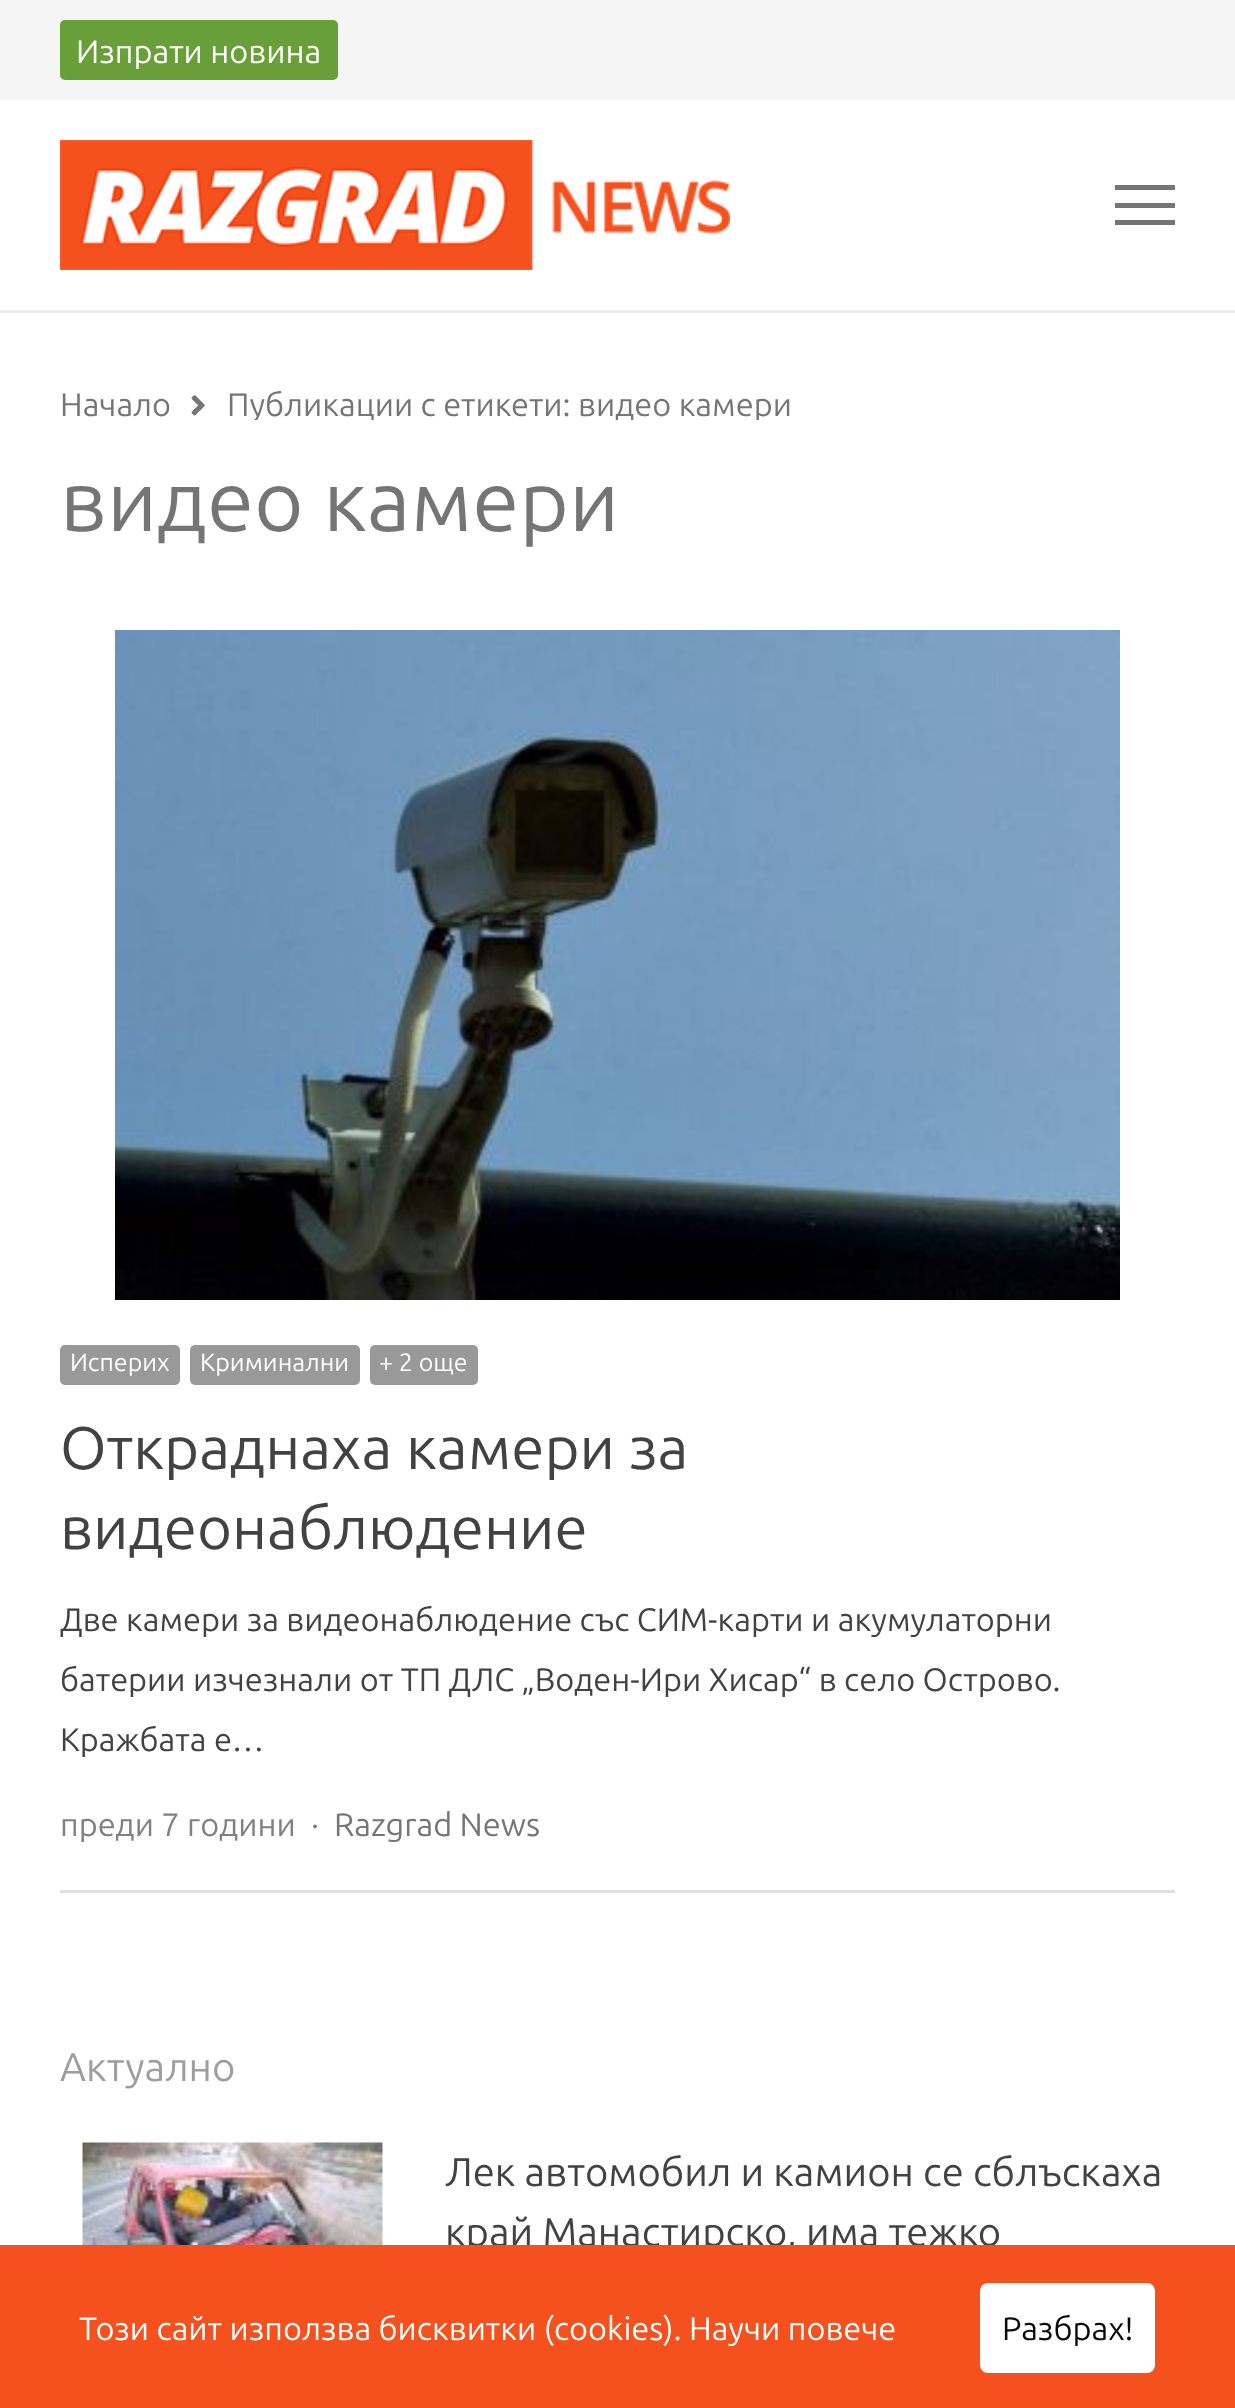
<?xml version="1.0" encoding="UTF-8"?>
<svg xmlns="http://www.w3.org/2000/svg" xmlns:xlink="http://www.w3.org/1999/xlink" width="1235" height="2408">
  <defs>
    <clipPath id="clip1"><rect x="60" y="370" width="1115" height="50" /></clipPath>
  </defs>
  <rect width="100%" height="100%" fill="#ffffff" />
  <rect width="1235" height="100" fill="#f5f5f5" />
  <rect x="60" y="20" width="278" height="60" rx="5" fill="#689f38" />
  <rect y="310" width="1235" height="3" fill="#ededed" />
  <image x="60" y="140" width="670" height="130" xlink:href="image1.png" />
  <rect x="1115" y="185" width="60" height="5" fill="#757575" />
  <rect x="1115" y="203" width="60" height="5" fill="#757575" />
  <rect x="1115" y="220" width="60" height="5" fill="#757575" />
  <image x="191" y="395" width="14" height="21" xlink:href="image2.png" />
  <image x="115" y="630" width="1005" height="670" xlink:href="image3.png" />
  <rect x="60" y="1345" width="120" height="40" rx="5" fill="#999999" />
  <rect x="190" y="1345" width="170" height="40" rx="5" fill="#999999" />
  <rect x="370" y="1345" width="108" height="40" rx="5" fill="#999999" />
  <rect x="60" y="1890" width="1115" height="3" fill="#e0e0e0" />
  <image x="82" y="2142" width="301" height="103" xlink:href="image4.png" />
  <text x="76" y="63" style="font-family: Ubuntu; font-size: 32.5px; fill: #ffffff">Изпрати новина</text>
  <text x="60" y="416" style="font-family: Ubuntu; font-size: 32.5px; fill: #757575">Начало</text>
  <g clip-path="url(#clip1)">
    <text x="227" y="416" style="font-family: Ubuntu; font-size: 32.5px; fill: #757575">Публикации с етикети: видео камери</text>
  </g>
  <text x="60" y="531" style="font-family: Ubuntu; font-size: 85px; fill: #757575">видео камери</text>
  <text x="70" y="1371" style="font-family: Ubuntu; font-size: 25px; fill: #ffffff">Исперих</text>
  <text x="200" y="1371" style="font-family: Ubuntu; font-size: 25px; fill: #ffffff">Криминални</text>
  <text x="379" y="1371" style="font-family: Ubuntu; font-size: 25px; fill: #ffffff">+ 2 още</text>
  <text x="60" y="1469" style="font-family: Ubuntu; font-size: 60px; fill: #424242">Откраднаха камери за</text>
  <text x="60" y="1549" style="font-family: Ubuntu; font-size: 60px; fill: #424242">видеонаблюдение</text>
  <text x="60" y="1631" style="font-family: Ubuntu; font-size: 32.5px; fill: #424242">Две камери за видеонаблюдение със СИМ-карти и акумулаторни</text>
  <text x="60" y="1691" style="font-family: Ubuntu; font-size: 32.5px; fill: #424242">батерии изчезнали от ТП ДЛС „Воден-Ири Хисар“ в село Острово.</text>
  <text x="60" y="1751" style="font-family: Ubuntu; font-size: 32.5px; fill: #424242">Кражбата е…</text>
  <text x="60" y="1836" style="font-family: Ubuntu; font-size: 32.5px; fill: #808080">преди 7 години</text>
  <text x="311" y="1836" style="font-family: Ubuntu; font-size: 32.5px; fill: #808080">·</text>
  <text x="334" y="1836" style="font-family: Ubuntu; font-size: 32.5px; fill: #757575">Razgrad News</text>
  <text x="60" y="2081" style="font-family: Ubuntu; font-size: 40px; fill: #9e9e9e">Актуално</text>
  <text x="445" y="2186" style="font-family: Ubuntu; font-size: 40px; fill: #424242">Лек автомобил и камион се сблъскаха</text>
  <text x="445" y="2246" style="font-family: Ubuntu; font-size: 40px; fill: #424242">край Манастирско, има тежко</text>
  <rect y="2245" width="1235" height="163" fill="#f4511e" />
  <text x="79" y="2340" style="font-family: Ubuntu; font-size: 32.5px; fill: #ffffff">Този сайт използва бисквитки (cookies).</text>
  <text x="689" y="2340" style="font-family: Ubuntu; font-size: 32.5px; fill: #ffffff">Научи повече</text>
  <rect x="980" y="2283" width="175" height="90" rx="8" fill="#ffffff" />
  <text x="1002" y="2340" style="font-family: Ubuntu; font-size: 32.5px; fill: #0a0a0a">Разбрах!</text>
</svg>
